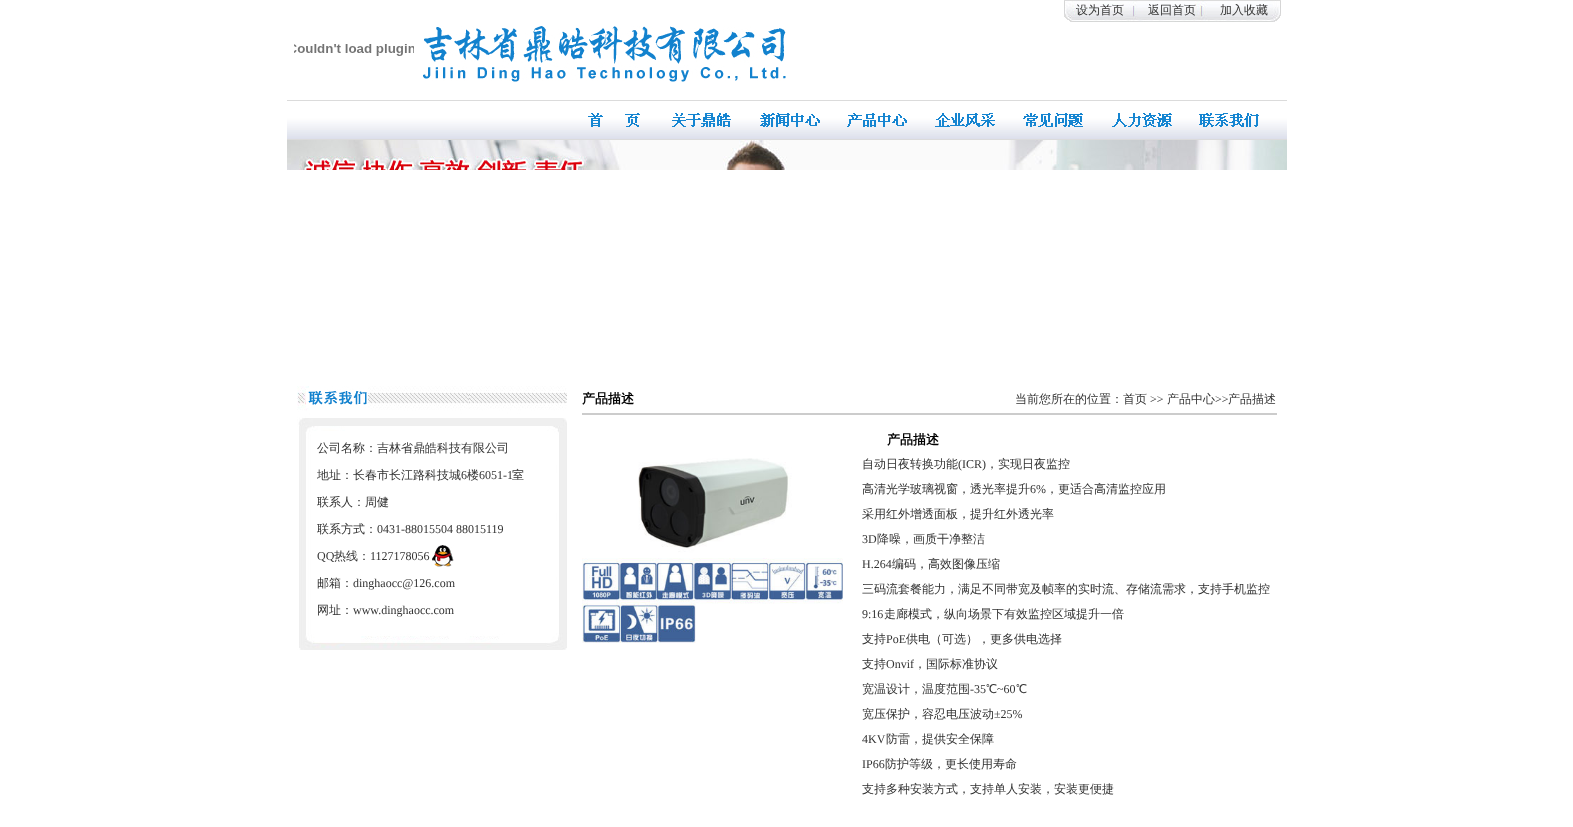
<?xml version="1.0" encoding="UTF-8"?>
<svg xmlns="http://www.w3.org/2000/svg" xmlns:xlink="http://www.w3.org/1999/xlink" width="1573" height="827">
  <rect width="100%" height="100%" fill="#ffffff" />
  <image x="1064" y="0" width="217" height="22" xlink:href="image1.png" />
  <image x="294" y="44" width="120" height="12" xlink:href="image2.png" />
  <image x="423" y="26" width="363" height="56" xlink:href="image3.png" />
  <image x="287" y="100" width="1000" height="40" xlink:href="image4.png" />
  <image x="588" y="113" width="52" height="14" xlink:href="image5.png" />
  <image x="672" y="113" width="59" height="14" xlink:href="image6.png" />
  <image x="760" y="113" width="60" height="14" xlink:href="image7.png" />
  <image x="847" y="113" width="60" height="14" xlink:href="image8.png" />
  <image x="935" y="113" width="60" height="14" xlink:href="image9.png" />
  <image x="1023" y="113" width="60" height="14" xlink:href="image10.png" />
  <image x="1112" y="113" width="60" height="14" xlink:href="image11.png" />
  <image x="1199" y="113" width="60" height="14" xlink:href="image12.png" />
  <image x="287" y="140" width="1000" height="30" xlink:href="image13.png" />
  <image x="297" y="386" width="270" height="264" xlink:href="image14.png" />
  <image x="432" y="545" width="22" height="22" xlink:href="image15.png" />
  <rect x="582" y="413" width="695" height="2" fill="#cccccc" />
  <image x="582" y="458" width="261" height="185" xlink:href="image16.png" />
  <text x="1076" y="14" style="font-family: WenQuanYi Zen Hei; font-size: 12px; font-weight: 500; fill: #333333">设为首页</text>
  <text x="1148" y="14" style="font-family: WenQuanYi Zen Hei; font-size: 12px; font-weight: 500; fill: #333333">返回首页</text>
  <text x="1220" y="14" style="font-family: WenQuanYi Zen Hei; font-size: 12px; font-weight: 500; fill: #333333">加入收藏</text>
  <text x="317" y="452" style="font-family: WenQuanYi Zen Hei; font-size: 12px; font-weight: 500; fill: #333333">公司名称：吉林省鼎皓科技有限公司</text>
  <text x="317" y="479" style="font-family: WenQuanYi Zen Hei; font-size: 12px; font-weight: 500; fill: #333333">地址：长春市长江路科技城</text>
  <text x="461" y="479" style="font-family: Liberation Serif; font-size: 12px; fill: #333333">6</text>
  <text x="467" y="479" style="font-family: WenQuanYi Zen Hei; font-size: 12px; font-weight: 500; fill: #333333">楼</text>
  <text x="479" y="479" style="font-family: Liberation Serif; font-size: 12px; fill: #333333">6051-1</text>
  <text x="512" y="479" style="font-family: WenQuanYi Zen Hei; font-size: 12px; font-weight: 500; fill: #333333">室</text>
  <text x="317" y="506" style="font-family: WenQuanYi Zen Hei; font-size: 12px; font-weight: 500; fill: #333333">联系人：周健</text>
  <text x="317" y="533" style="font-family: WenQuanYi Zen Hei; font-size: 12px; font-weight: 500; fill: #333333">联系方式：</text>
  <text x="377" y="533" style="font-family: Liberation Serif; font-size: 12px; fill: #333333">0431-88015504 88015119</text>
  <text x="317" y="560" style="font-family: Liberation Serif; font-size: 12px; fill: #333333">QQ</text>
  <text x="334" y="560" style="font-family: WenQuanYi Zen Hei; font-size: 12px; font-weight: 500; fill: #333333">热线：</text>
  <text x="370" y="560" style="font-family: Liberation Serif; font-size: 12px; fill: #333333">1127178056</text>
  <text x="317" y="587" style="font-family: WenQuanYi Zen Hei; font-size: 12px; font-weight: 500; fill: #333333">邮箱：</text>
  <text x="353" y="587" style="font-family: Liberation Serif; font-size: 12px; fill: #333333">dinghaocc@126.com</text>
  <text x="317" y="614" style="font-family: WenQuanYi Zen Hei; font-size: 12px; font-weight: 500; fill: #333333">网址：</text>
  <text x="353" y="614" style="font-family: Liberation Serif; font-size: 12px; fill: #333333">www.dinghaocc.com</text>
  <text x="582" y="403" style="font-family: WenQuanYi Zen Hei; font-size: 13px; font-weight: bold; fill: #000000">产品描述</text>
  <text x="1015" y="403" style="font-family: WenQuanYi Zen Hei; font-size: 12px; font-weight: 500; fill: #333333">当前您所在的位置：首页</text>
  <text x="1150" y="403" style="font-family: Liberation Serif; font-size: 12px; fill: #333333">&gt;&gt;</text>
  <text x="1167" y="403" style="font-family: WenQuanYi Zen Hei; font-size: 12px; font-weight: 500; fill: #333333">产品中心</text>
  <text x="1215" y="403" style="font-family: Liberation Serif; font-size: 12px; fill: #333333">&gt;&gt;</text>
  <text x="1228" y="403" style="font-family: WenQuanYi Zen Hei; font-size: 12px; font-weight: 500; fill: #333333">产品描述</text>
  <text x="887" y="444" style="font-family: WenQuanYi Zen Hei; font-size: 13px; font-weight: bold; fill: #000000">产品描述</text>
  <text x="862" y="468" style="font-family: WenQuanYi Zen Hei; font-size: 12px; font-weight: 500; fill: #333333">自动日夜转换功能</text>
  <text x="958" y="468" style="font-family: Liberation Serif; font-size: 12px; fill: #333333">(ICR)</text>
  <text x="986" y="468" style="font-family: WenQuanYi Zen Hei; font-size: 12px; font-weight: 500; fill: #333333">，实现日夜监控</text>
  <text x="862" y="493" style="font-family: WenQuanYi Zen Hei; font-size: 12px; font-weight: 500; fill: #333333">高清光学玻璃视窗，透光率提升</text>
  <text x="1030" y="493" style="font-family: Liberation Serif; font-size: 12px; fill: #333333">6%</text>
  <text x="1046" y="493" style="font-family: WenQuanYi Zen Hei; font-size: 12px; font-weight: 500; fill: #333333">，更适合高清监控应用</text>
  <text x="862" y="518" style="font-family: WenQuanYi Zen Hei; font-size: 12px; font-weight: 500; fill: #333333">采用红外增透面板，提升红外透光率</text>
  <text x="862" y="543" style="font-family: Liberation Serif; font-size: 12px; fill: #333333">3D</text>
  <text x="877" y="543" style="font-family: WenQuanYi Zen Hei; font-size: 12px; font-weight: 500; fill: #333333">降噪，画质干净整洁</text>
  <text x="862" y="568" style="font-family: Liberation Serif; font-size: 12px; fill: #333333">H.264</text>
  <text x="892" y="568" style="font-family: WenQuanYi Zen Hei; font-size: 12px; font-weight: 500; fill: #333333">编码，高效图像压缩</text>
  <text x="862" y="593" style="font-family: WenQuanYi Zen Hei; font-size: 12px; font-weight: 500; fill: #333333">三码流套餐能力，满足不同带宽及帧率的实时流、存储流需求，支持手机监控</text>
  <text x="862" y="618" style="font-family: Liberation Serif; font-size: 12px; fill: #333333">9:16</text>
  <text x="884" y="618" style="font-family: WenQuanYi Zen Hei; font-size: 12px; font-weight: 500; fill: #333333">走廊模式，纵向场景下有效监控区域提升一倍</text>
  <text x="862" y="643" style="font-family: WenQuanYi Zen Hei; font-size: 12px; font-weight: 500; fill: #333333">支持</text>
  <text x="886" y="643" style="font-family: Liberation Serif; font-size: 12px; fill: #333333">PoE</text>
  <text x="906" y="643" style="font-family: WenQuanYi Zen Hei; font-size: 12px; font-weight: 500; fill: #333333">供电（可选），更多供电选择</text>
  <text x="862" y="668" style="font-family: WenQuanYi Zen Hei; font-size: 12px; font-weight: 500; fill: #333333">支持</text>
  <text x="886" y="668" style="font-family: Liberation Serif; font-size: 12px; fill: #333333">Onvif</text>
  <text x="914" y="668" style="font-family: WenQuanYi Zen Hei; font-size: 12px; font-weight: 500; fill: #333333">，国际标准协议</text>
  <text x="862" y="693" style="font-family: WenQuanYi Zen Hei; font-size: 12px; font-weight: 500; fill: #333333">宽温设计，温度范围</text>
  <text x="970" y="693" style="font-family: Liberation Serif; font-size: 12px; fill: #333333">-35</text>
  <text x="986" y="693" style="font-family: WenQuanYi Zen Hei; font-size: 12px; font-weight: 500; fill: #333333">℃</text>
  <text x="997" y="693" style="font-family: Liberation Serif; font-size: 12px; fill: #333333">~60</text>
  <text x="1016" y="693" style="font-family: WenQuanYi Zen Hei; font-size: 12px; font-weight: 500; fill: #333333">℃</text>
  <text x="862" y="718" style="font-family: WenQuanYi Zen Hei; font-size: 12px; font-weight: 500; fill: #333333">宽压保护，容忍电压波动</text>
  <text x="994" y="718" style="font-family: Liberation Serif; font-size: 12px; fill: #333333">±25%</text>
  <text x="862" y="743" style="font-family: Liberation Serif; font-size: 12px; fill: #333333">4KV</text>
  <text x="886" y="743" style="font-family: WenQuanYi Zen Hei; font-size: 12px; font-weight: 500; fill: #333333">防雷，提供安全保障</text>
  <text x="862" y="768" style="font-family: Liberation Serif; font-size: 12px; fill: #333333">IP66</text>
  <text x="885" y="768" style="font-family: WenQuanYi Zen Hei; font-size: 12px; font-weight: 500; fill: #333333">防护等级，更长使用寿命</text>
  <text x="862" y="793" style="font-family: WenQuanYi Zen Hei; font-size: 12px; font-weight: 500; fill: #333333">支持多种安装方式，支持单人安装，安装更便捷</text>
</svg>
